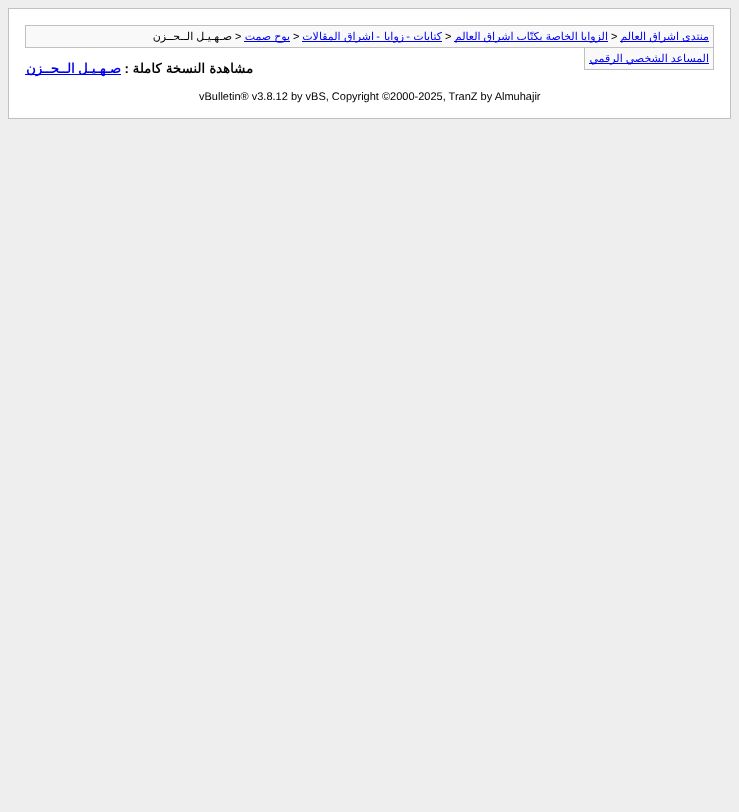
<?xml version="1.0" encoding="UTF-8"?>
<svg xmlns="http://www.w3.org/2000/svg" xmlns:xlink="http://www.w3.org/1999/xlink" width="739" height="812">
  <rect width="100%" height="100%" fill="#eeeeee" />
  <rect x="8.5" y="8.5" width="722" height="110" fill="#ffffff" stroke="#c0c0c0" />
  <rect x="25.5" y="25.5" width="688" height="22" fill="#f9f9f9" stroke="#c0c0c0" />
  <rect x="620" y="41" width="89" height="1" fill="#0000ee" />
  <rect x="454" y="41" width="154" height="1" fill="#0000ee" />
  <rect x="302" y="41" width="140" height="1" fill="#0000ee" />
  <rect x="244" y="41" width="46" height="1" fill="#0000ee" />
  <rect x="585" y="48" width="128" height="21" fill="#f9f9f9" />
  <rect x="713" y="48" width="1" height="22" fill="#c0c0c0" />
  <rect x="584" y="69" width="130" height="1" fill="#c0c0c0" />
  <rect x="584" y="48" width="1" height="22" fill="#c0c0c0" />
  <rect x="589" y="63" width="120" height="1" fill="#0000ee" />
  <rect x="25" y="74" width="96" height="1" fill="#0000ee" />
  <text x="709" y="40" word-spacing="-0.5" style="font-family: DejaVu Sans; font-size: 11px; direction: rtl; fill: #0000ee">منتدى اشراق العالم</text>
  <text x="611" y="40" style="font-family: Liberation Sans; font-size: 11px; fill: #000000">&gt;</text>
  <text x="608" y="40" word-spacing="-0.5" style="font-family: DejaVu Sans; font-size: 11px; direction: rtl; fill: #0000ee">الزوايا الخاصة بكتّاب اشراق العالم</text>
  <text x="445" y="40" style="font-family: Liberation Sans; font-size: 11px; fill: #000000">&gt;</text>
  <text x="442" y="40" style="font-family: DejaVu Sans; font-size: 11px; direction: rtl; fill: #0000ee">كتابات</text>
  <text x="410" y="40" style="font-family: Liberation Sans; font-size: 11px; direction: rtl; fill: #0000ee">-</text>
  <text x="404" y="40" style="font-family: DejaVu Sans; font-size: 11px; direction: rtl; fill: #0000ee">زوايا</text>
  <text x="380" y="40" style="font-family: Liberation Sans; font-size: 11px; direction: rtl; fill: #0000ee">-</text>
  <text x="374" y="40" style="font-family: DejaVu Sans; font-size: 11px; direction: rtl; fill: #0000ee">اشراق المقالات</text>
  <text x="293" y="40" style="font-family: Liberation Sans; font-size: 11px; fill: #000000">&gt;</text>
  <text x="290" y="40" word-spacing="-0.5" style="font-family: DejaVu Sans; font-size: 11px; direction: rtl; fill: #0000ee">بوح صمت</text>
  <text x="235" y="40" style="font-family: Liberation Sans; font-size: 11px; fill: #000000">&gt;</text>
  <text x="232" y="40" word-spacing="-0.5" style="font-family: DejaVu Sans; font-size: 11px; direction: rtl; fill: #000000">صـهـيـل الــحــزن</text>
  <text x="709" y="62" word-spacing="-0.5" style="font-family: DejaVu Sans; font-size: 11px; direction: rtl; fill: #0000ee">المساعد الشخصي الرقمي</text>
  <text x="253" y="73" style="font-family: DejaVu Sans; font-size: 13.25px; font-weight: bold; direction: rtl; fill: #000000">مشاهدة النسخة كاملة</text>
  <text x="129" y="73" style="font-family: Liberation Sans; font-size: 13.25px; font-weight: bold; direction: rtl; fill: #000000">:</text>
  <text x="121" y="73" word-spacing="-1" style="font-family: DejaVu Sans; font-size: 13.25px; font-weight: bold; direction: rtl; fill: #0000ee">صـهـيـل الــحــزن</text>
  <text x="199" y="100" style="font-family: Liberation Sans; font-size: 11px; fill: #000000">vBulletin® v3.8.12 by vBS, Copyright ©2000-2025, TranZ by Almuhajir</text>
</svg>
